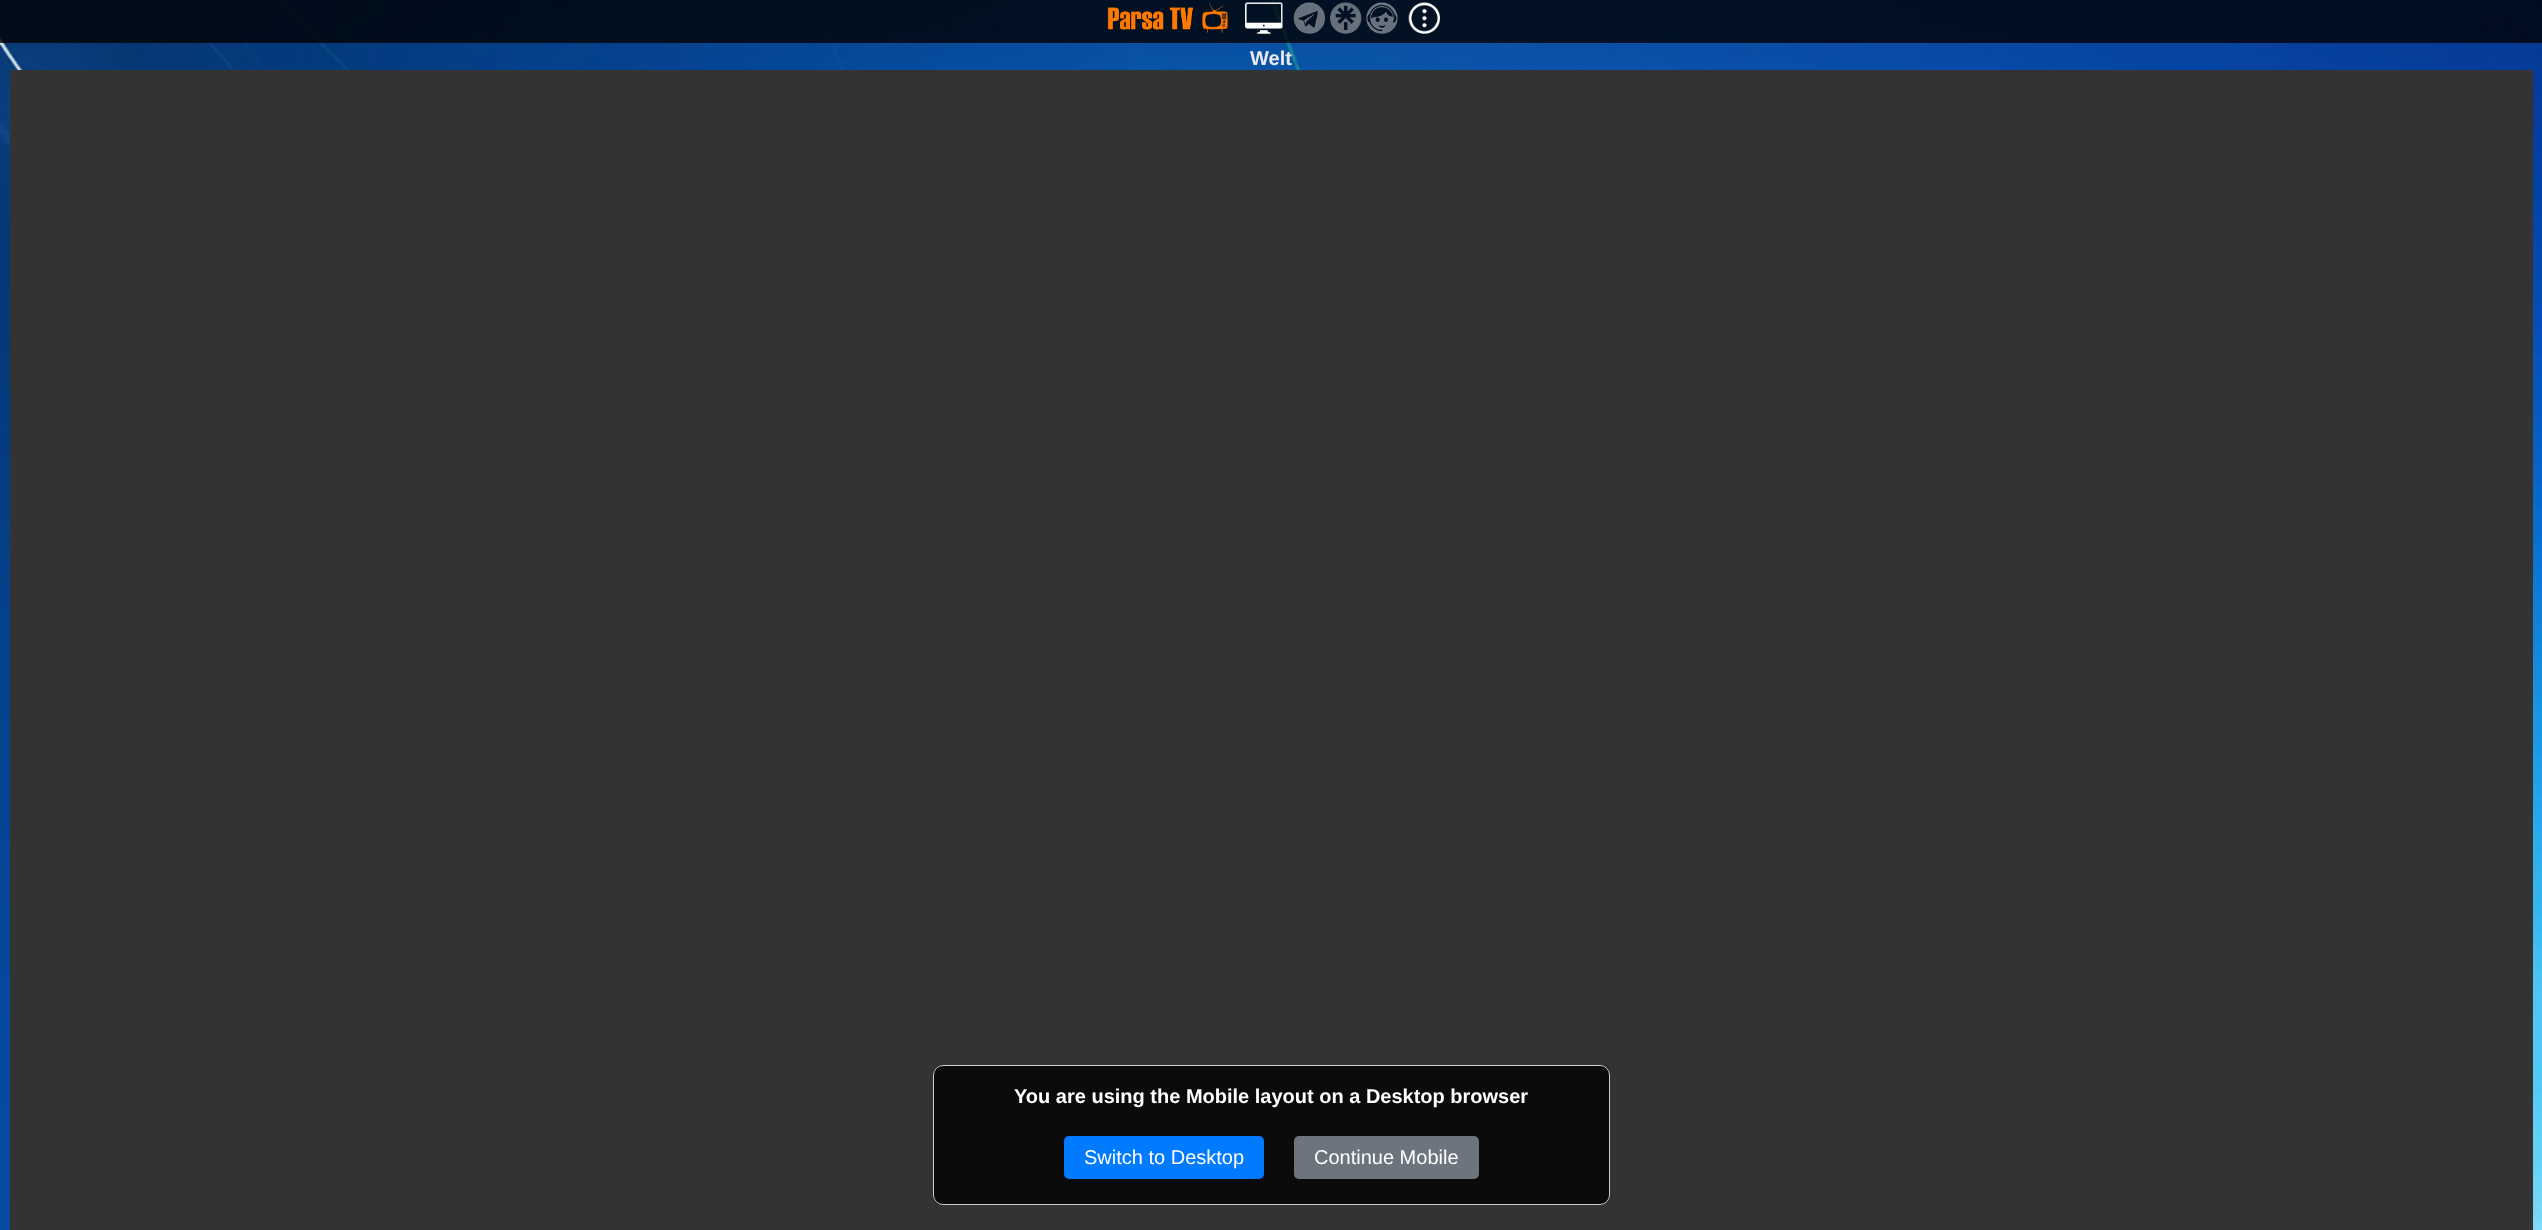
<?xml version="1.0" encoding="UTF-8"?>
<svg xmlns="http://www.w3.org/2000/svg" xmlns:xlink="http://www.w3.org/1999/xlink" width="2542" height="1230">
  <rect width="100%" height="100%" fill="#ffffff" />
  <image x="0" y="0" width="2542" height="1230" xlink:href="image1.png" />
  <rect width="2542" height="43" fill="#000000" fill-opacity="0.78" />
  <image x="1107" y="3" width="121" height="30" xlink:href="image2.png" />
  <image x="1245" y="2" width="38" height="32" xlink:href="image3.png" />
  <image x="1293" y="2" width="32" height="32" xlink:href="image4.png" />
  <image x="1330" y="2" width="32" height="32" xlink:href="image5.png" />
  <image x="1366" y="2" width="32" height="32" xlink:href="image6.png" />
  <image x="1408" y="2" width="32" height="32" xlink:href="image7.png" />
  <rect x="10" y="70" width="2523" height="1160" fill="#333333" />
  <image x="933" y="1065" width="677" height="140" xlink:href="image8.png" />
  <rect x="933.5" y="1065.5" width="676" height="139" rx="9.5" fill="none" stroke="#cccccc" />
  <rect x="1064" y="1136" width="200" height="43" rx="5" fill="#007bff" />
  <rect x="1294" y="1136" width="185" height="43" rx="5" fill="#6c757d" />
  <text x="1250" y="65" style="font-family: Liberation Sans; font-size: 20px; font-weight: bold; fill: #ebebeb">Welt</text>
  <text x="1014" y="1103" style="font-family: Liberation Sans; font-size: 20px; font-weight: bold; fill: #ffffff">You are using the Mobile layout on a Desktop browser</text>
  <text x="1084" y="1164" style="font-family: Liberation Sans; font-size: 20px; fill: #ffffff">Switch to Desktop</text>
  <text x="1314" y="1164" style="font-family: Liberation Sans; font-size: 20px; fill: #ffffff">Continue Mobile</text>
</svg>
